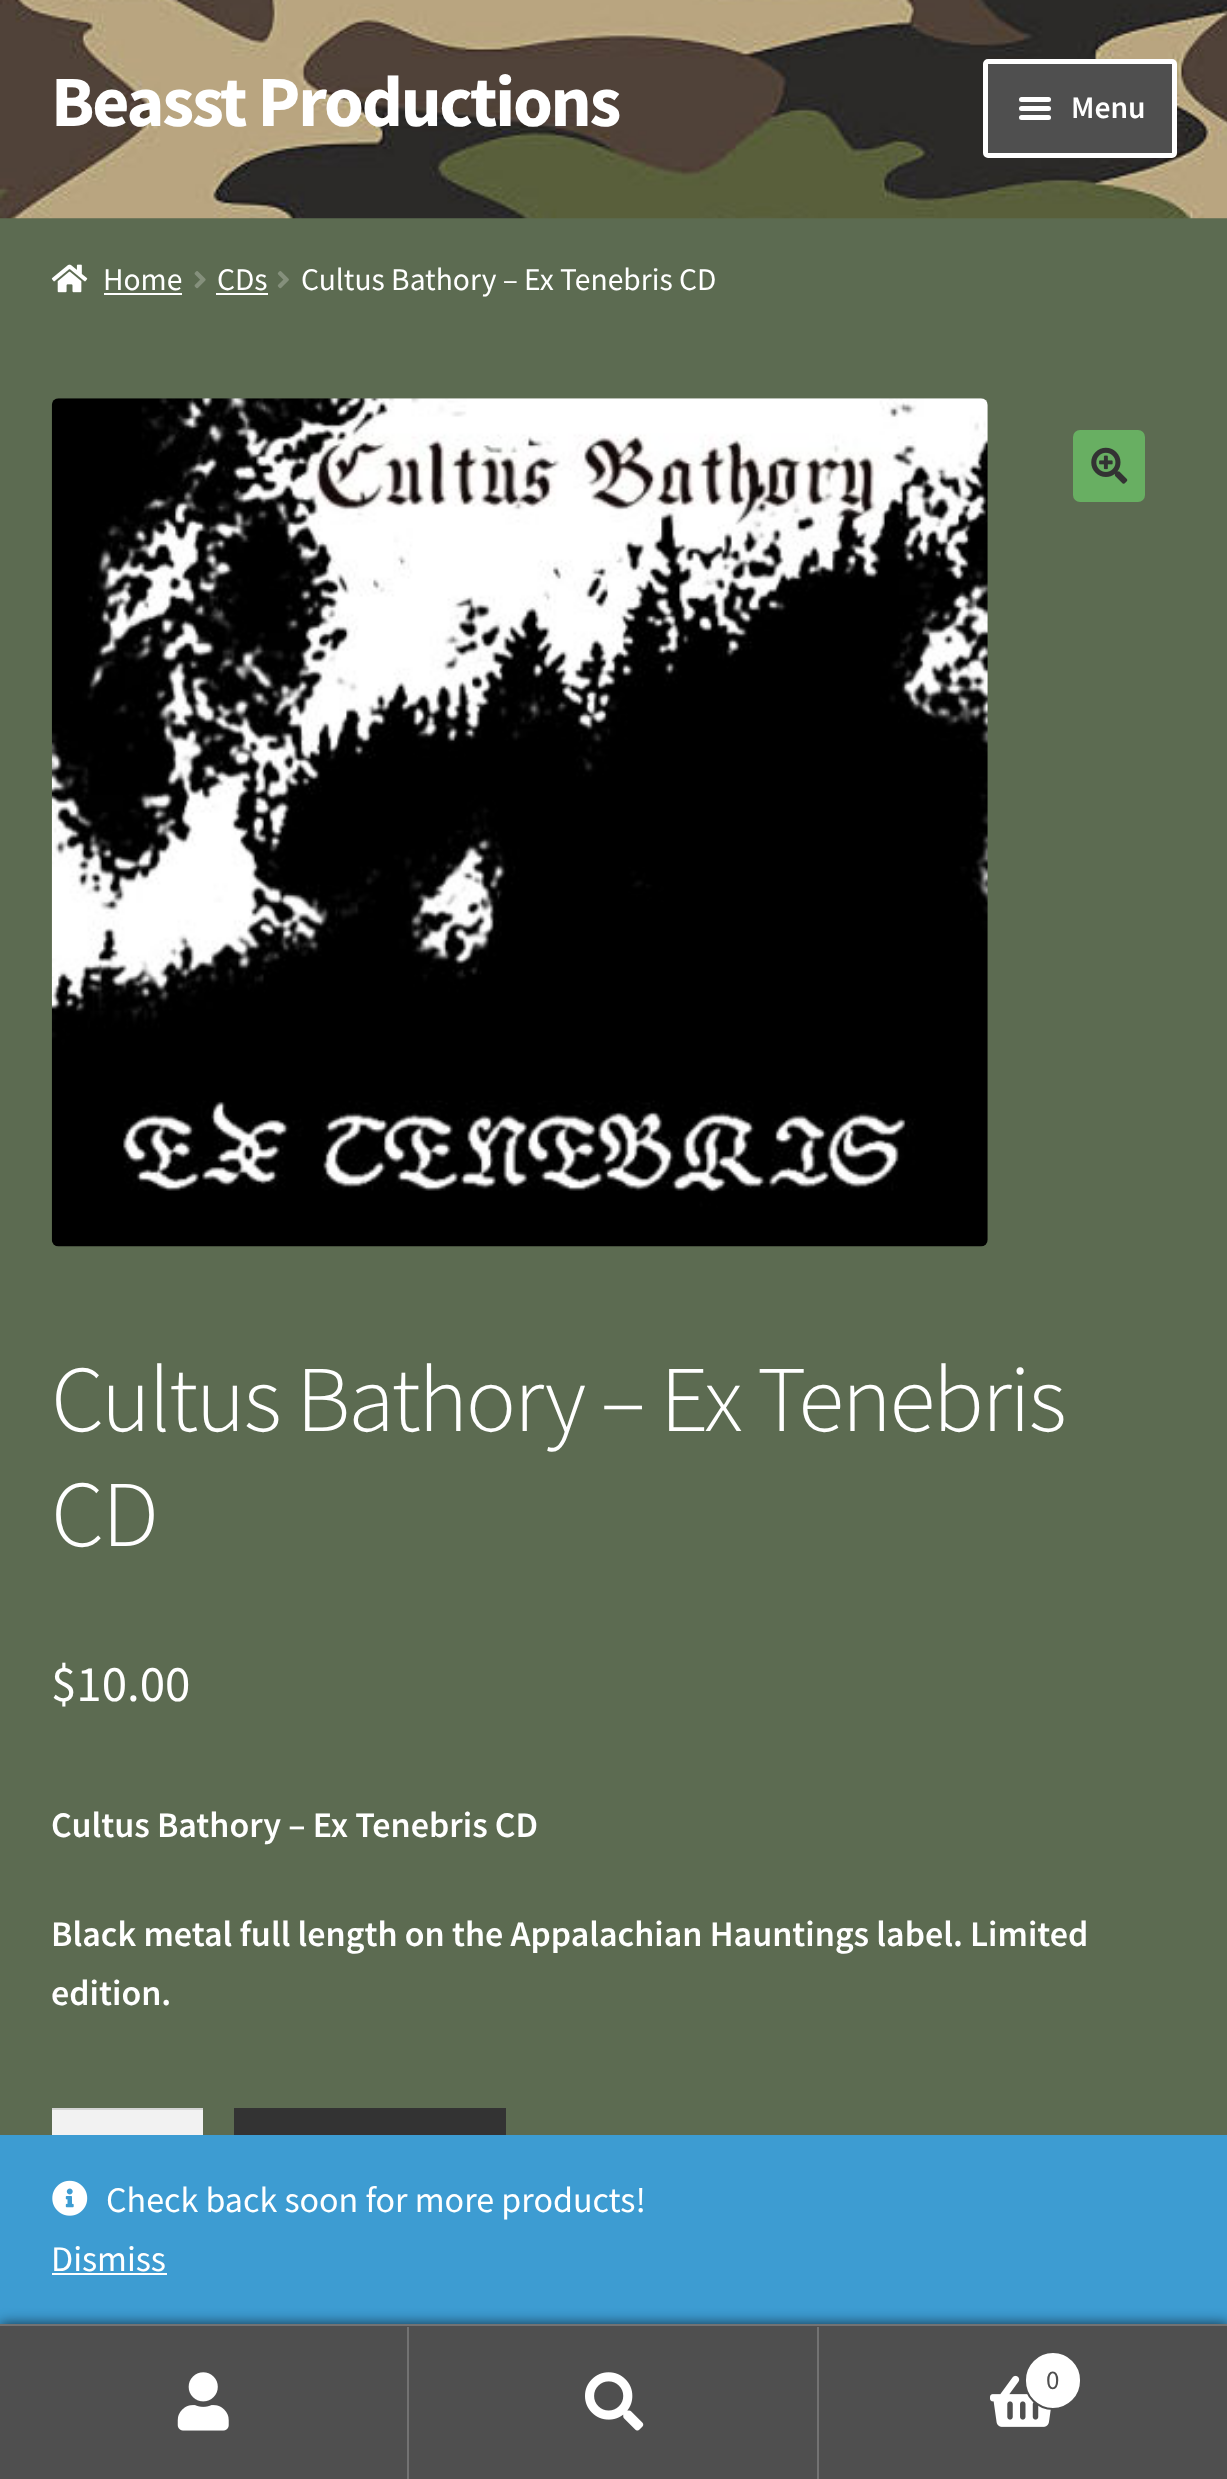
<?xml version="1.0" encoding="UTF-8"?>
<svg xmlns="http://www.w3.org/2000/svg" xmlns:xlink="http://www.w3.org/1999/xlink" width="1227" height="2479">
  <rect width="100%" height="100%" fill="#5c6b51" />
  <image x="0" y="0" width="1227" height="219" xlink:href="image1.png" />
  <rect x="985.5" y="61.5" width="189" height="94" rx="2.5" fill="#4f4f4f" stroke="#ffffff" stroke-width="5" />
  <rect x="1019" y="97" width="32" height="5" rx="2.5" fill="#ffffff" />
  <rect x="1019" y="106" width="32" height="5" rx="2.5" fill="#ffffff" />
  <rect x="1019" y="115" width="32" height="5" rx="2.5" fill="#ffffff" />
  <image x="51" y="264" width="37" height="29" xlink:href="image2.png" />
  <rect x="104" y="293" width="78" height="2" fill="#ffffff" />
  <image x="194" y="271" width="12" height="18" xlink:href="image3.png" />
  <rect x="216" y="293" width="52" height="2" fill="#ffffff" />
  <image x="277" y="271" width="12" height="18" xlink:href="image4.png" />
  <image x="51" y="398" width="937" height="849" xlink:href="image5.png" />
  <rect x="1073" y="430" width="72" height="72" rx="7" fill="#68af62" />
  <image x="1091" y="447" width="37" height="37" xlink:href="image6.png" />
  <rect x="52" y="2110" width="151" height="25" fill="#f2f2f2" />
  <rect x="52" y="2108" width="151" height="2" fill="#d4d4d4" />
  <rect x="234" y="2108" width="272" height="27" fill="#333333" />
  <rect y="2135" width="1227" height="189" fill="#3d9cd2" />
  <rect y="2324" width="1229" height="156" fill="#000000" fill-opacity="0.7" filter="blur(7px)" />
  <rect y="2326" width="1227" height="1" fill="#4f4f4f" />
  <rect y="2324" width="1227" height="2" fill="#727272" />
  <rect y="2327" width="817" height="152" fill="#4f4f4f" />
  <rect x="407" y="2327" width="2" height="152" fill="#727272" />
  <image x="177" y="2372" width="52" height="59" xlink:href="image7.png" />
  <rect x="817" y="2327" width="2" height="152" fill="#727272" />
  <image x="585" y="2372" width="59" height="59" xlink:href="image8.png" />
  <rect x="819" y="2327" width="408" height="152" fill="#4f4f4f" />
  <image x="990" y="2375" width="61" height="52" xlink:href="image9.png" />
  <rect x="1025" y="2352" width="56" height="57" rx="28" fill="#ffffff" stroke="#4f4f4f" stroke-width="2" />
  <image x="52" y="2180" width="36" height="36" xlink:href="image10.png" />
  <rect x="52" y="2273" width="115" height="2" fill="#ffffff" />
  <text x="51" y="126" style="font-family: Source Sans Pro; font-size: 72px; font-weight: bold; letter-spacing: -2.25px; fill: #ffffff">Beasst Productions</text>
  <text x="1071" y="118" style="font-family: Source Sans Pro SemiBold; font-size: 31.5px; font-weight: 600; fill: #ffffff">Menu</text>
  <text x="103" y="290" style="font-family: Source Sans Pro; font-size: 31.5px; fill: #ffffff">Home</text>
  <text x="217" y="290" style="font-family: Source Sans Pro; font-size: 31.5px; fill: #ffffff">CDs</text>
  <text x="301" y="290" style="font-family: Source Sans Pro; font-size: 31.5px; fill: #ffffff">Cultus Bathory – Ex Tenebris CD</text>
  <text x="51" y="1431" style="font-family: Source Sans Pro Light; font-size: 94.25px; font-weight: 300; letter-spacing: -2.25px; fill: #ffffff">Cultus Bathory – Ex Tenebris</text>
  <text x="51" y="1546" style="font-family: Source Sans Pro Light; font-size: 94.25px; font-weight: 300; letter-spacing: -2.25px; fill: #ffffff">CD</text>
  <text x="51" y="1701" style="font-family: Source Sans Pro; font-size: 51px; fill: #ffffff">$10.00</text>
  <text x="51" y="1837" style="font-family: Source Sans Pro SemiBold; font-size: 36px; font-weight: 600; fill: #ffffff">Cultus Bathory – Ex Tenebris CD</text>
  <text x="51" y="1946" style="font-family: Source Sans Pro SemiBold; font-size: 36px; font-weight: 600; fill: #ffffff">Black metal full length on the Appalachian Hauntings label. Limited</text>
  <text x="51" y="2005" style="font-family: Source Sans Pro SemiBold; font-size: 36px; font-weight: 600; fill: #ffffff">edition.</text>
  <text x="1046" y="2389" style="font-family: Source Sans Pro; font-size: 27px; fill: #4f4f4f">0</text>
  <text x="106" y="2212" style="font-family: Source Sans Pro; font-size: 36px; fill: #ffffff">Check back soon for more products!</text>
  <text x="51" y="2271" style="font-family: Source Sans Pro; font-size: 36px; fill: #ffffff">Dismiss</text>
</svg>
